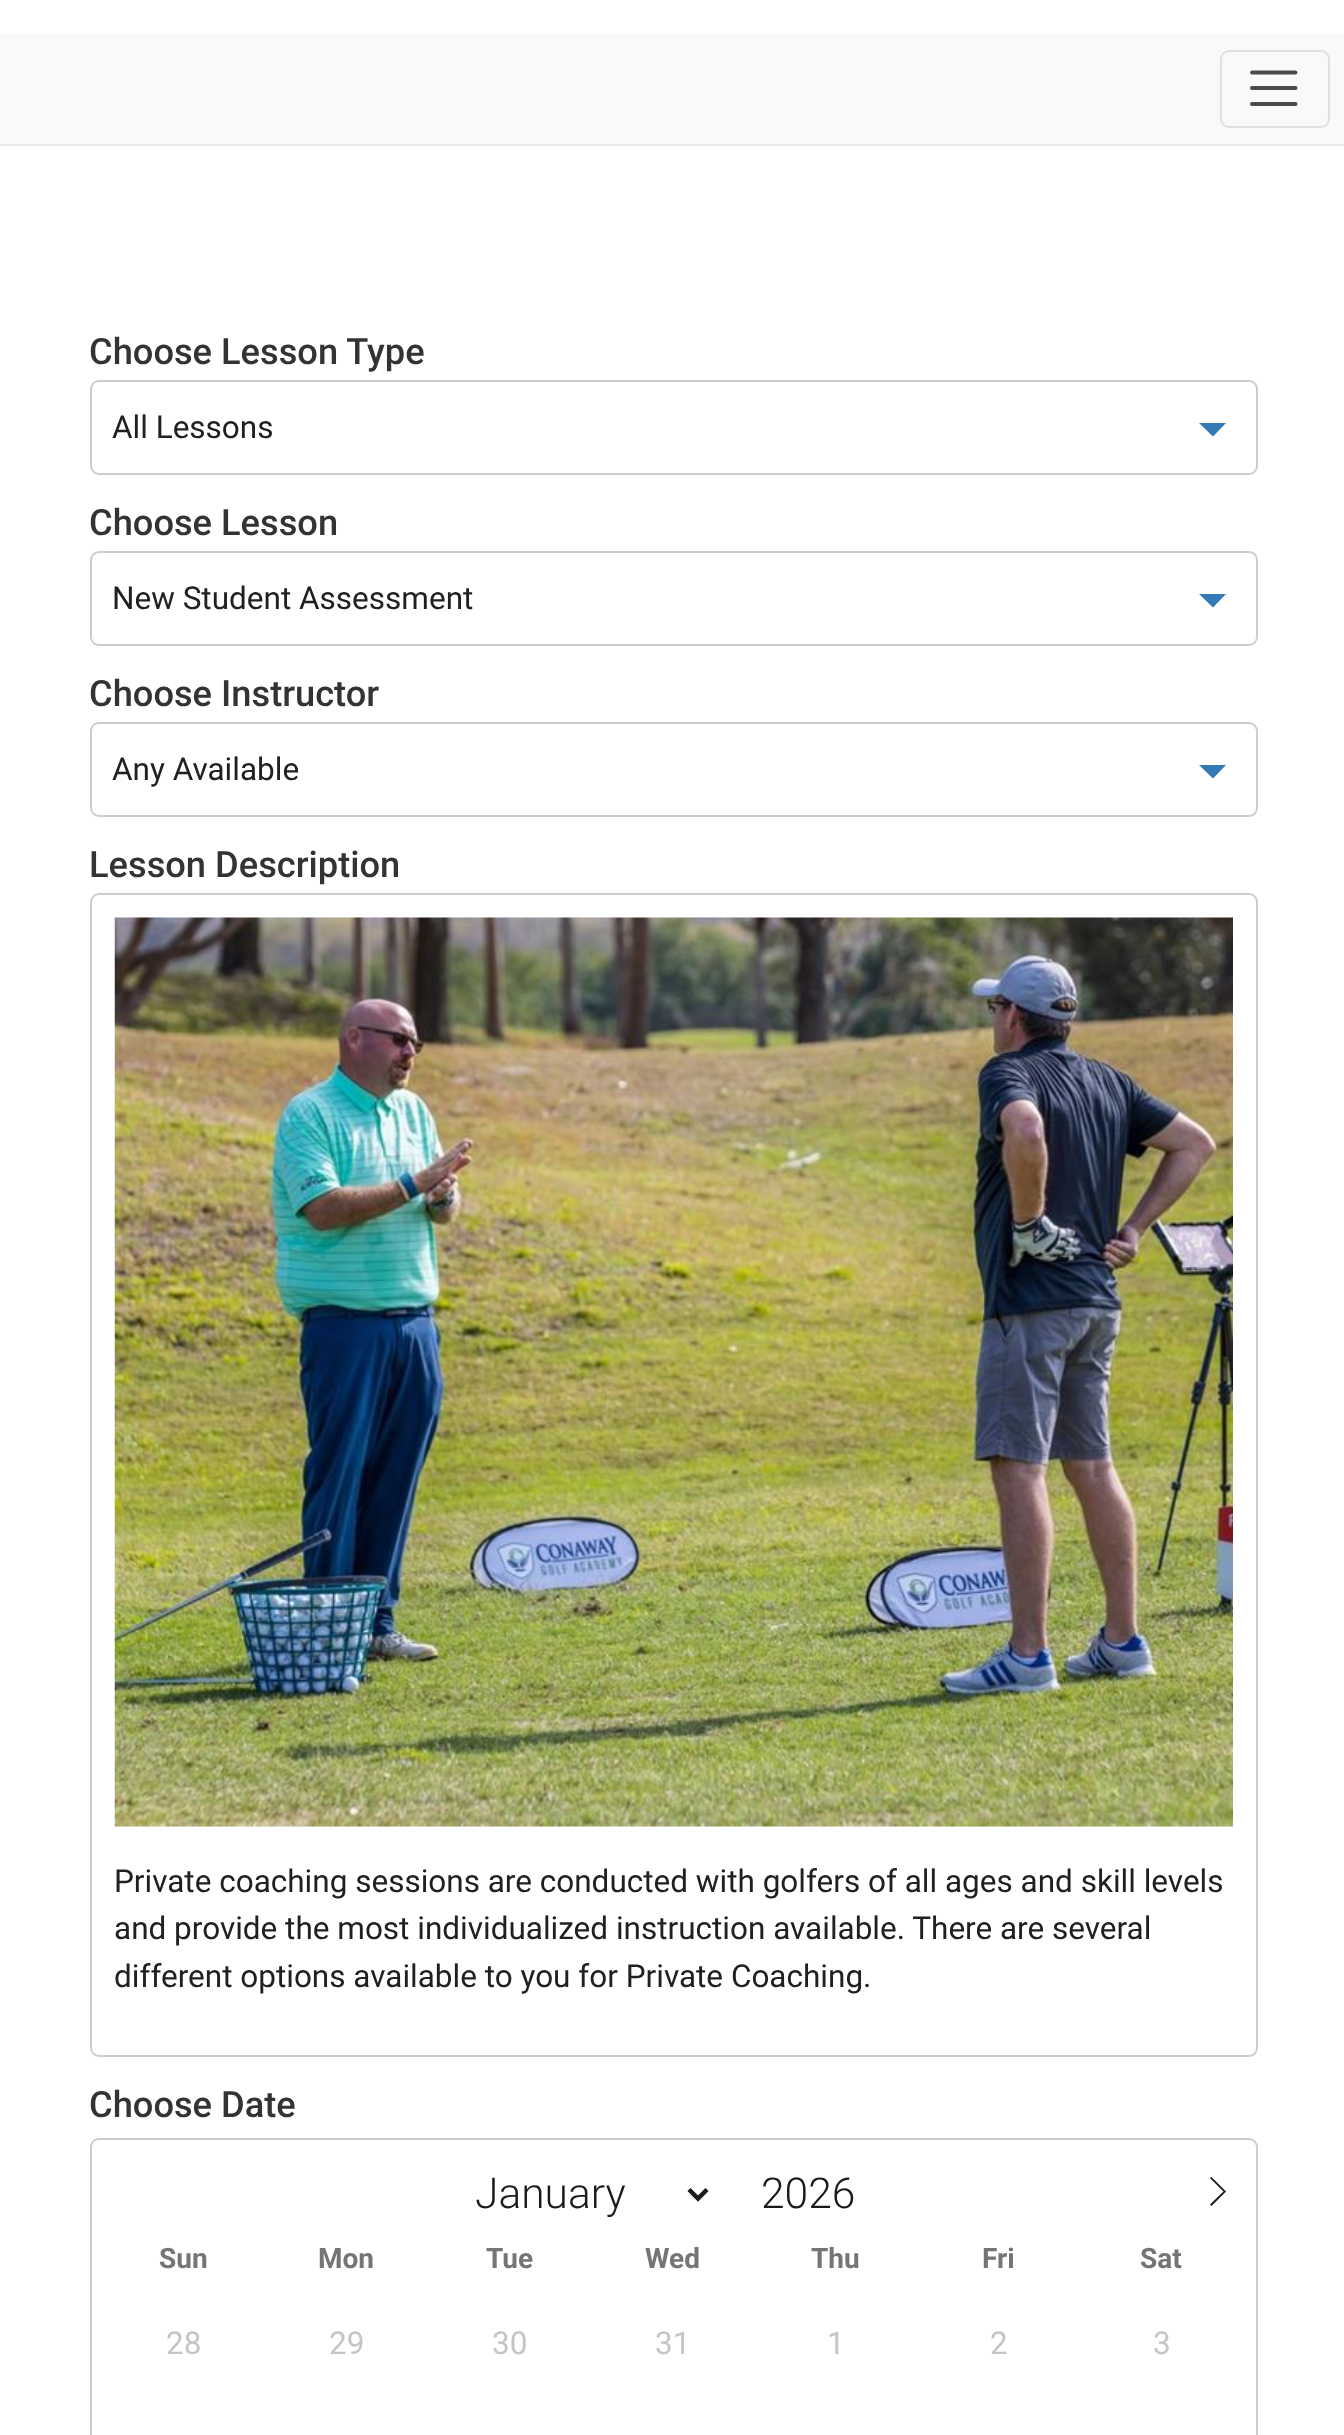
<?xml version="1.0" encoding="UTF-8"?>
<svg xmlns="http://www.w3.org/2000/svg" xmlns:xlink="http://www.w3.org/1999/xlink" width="1344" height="2435">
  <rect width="100%" height="100%" fill="#ffffff" />
  <rect y="34" width="1344" height="110" fill="#f8f9fa" />
  <rect y="144" width="1344" height="2" fill="#e7e7e7" />
  <rect x="1221" y="51" width="108" height="76" rx="8" fill="none" stroke="#dfe0e1" stroke-width="2" />
  <path d="M 1252 72.5 h 43.5 m -43.5 15.5 h 43.5 m -43.5 16 h 43.5" fill="none" stroke="#4a4b4b" stroke-width="3.9" stroke-linecap="round" />
  <rect x="91" y="381" width="1166" height="93" rx="8" fill="none" stroke="#cdcdcd" stroke-width="2" />
  <path d="M 1199 423 h 27 l -13 13.5 z" fill="#337ab7" />
  <rect x="91" y="552" width="1166" height="93" rx="8" fill="none" stroke="#cdcdcd" stroke-width="2" />
  <path d="M 1199 594 h 27 l -13 13.5 z" fill="#337ab7" />
  <rect x="91" y="723" width="1166" height="93" rx="8" fill="none" stroke="#cdcdcd" stroke-width="2" />
  <path d="M 1199 765 h 27 l -13 13.5 z" fill="#337ab7" />
  <rect x="91" y="894" width="1166" height="1162" rx="8" fill="none" stroke="#cdcdcd" stroke-width="2" />
  <image x="114" y="917" width="1119" height="910" xlink:href="image1.png" />
  <rect x="91" y="2139" width="1166" height="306" rx="8" fill="none" stroke="#cdcdcd" stroke-width="2" />
  <path d="M 689 2189.5 l 9 9 l 9 -9" fill="none" stroke="#1a1a1a" stroke-width="4.5" />
  <path d="M 1226 2191.5 l -14.5 14.5 l -1.5 -1.5 l 13.5 -13 l -13.5 -13.5 l 1.5 -1 z" fill="#1a1a1a" />
  <text x="89" y="364" style="font-family: Roboto; font-size: 36.25px; font-weight: 500; fill: #333333">Choose Lesson Type</text>
  <text x="112" y="438" style="font-family: Roboto; font-size: 31.5px; fill: #202020">All Lessons</text>
  <text x="89" y="535" style="font-family: Roboto; font-size: 36.25px; font-weight: 500; fill: #333333">Choose Lesson</text>
  <text x="112" y="609" style="font-family: Roboto; font-size: 31.5px; fill: #202020">New Student Assessment</text>
  <text x="89" y="706" style="font-family: Roboto; font-size: 36.25px; font-weight: 500; fill: #333333">Choose Instructor</text>
  <text x="112" y="780" style="font-family: Roboto; font-size: 31.5px; fill: #202020">Any Available</text>
  <text x="89" y="877" style="font-family: Roboto; font-size: 36.25px; font-weight: 500; fill: #333333">Lesson Description</text>
  <text x="114" y="1892" style="font-family: Roboto; font-size: 31.5px; fill: #202020">Private coaching sessions are conducted with golfers of all ages and skill levels</text>
  <text x="114" y="1939" style="font-family: Roboto; font-size: 31.5px; fill: #202020">and provide the most individualized instruction available. There are several</text>
  <text x="114" y="1987" style="font-family: Roboto; font-size: 31.5px; fill: #202020">different options available to you for Private Coaching.</text>
  <text x="89" y="2117" style="font-family: Roboto; font-size: 36.25px; font-weight: 500; fill: #333333">Choose Date</text>
  <text x="475" y="2208" style="font-family: Roboto; font-size: 42.5px; font-weight: 300; fill: #1a1a1a">January</text>
  <text x="761" y="2208" style="font-family: Roboto; font-size: 42.5px; font-weight: 300; fill: #1a1a1a">2026</text>
  <text x="159" y="2268" style="font-family: Roboto; font-size: 28px; font-weight: bold; fill: #757575">Sun</text>
  <text x="318" y="2268" style="font-family: Roboto; font-size: 28px; font-weight: bold; fill: #757575">Mon</text>
  <text x="486" y="2268" style="font-family: Roboto; font-size: 28px; font-weight: bold; fill: #757575">Tue</text>
  <text x="645" y="2268" style="font-family: Roboto; font-size: 28px; font-weight: bold; fill: #757575">Wed</text>
  <text x="811" y="2268" style="font-family: Roboto; font-size: 28px; font-weight: bold; fill: #757575">Thu</text>
  <text x="982" y="2268" style="font-family: Roboto; font-size: 28px; font-weight: bold; fill: #757575">Fri</text>
  <text x="1140" y="2268" style="font-family: Roboto; font-size: 28px; font-weight: bold; fill: #757575">Sat</text>
  <text x="166" y="2354" style="font-family: Roboto; font-size: 31.5px; fill: #c5c5c5">28</text>
  <text x="329" y="2354" style="font-family: Roboto; font-size: 31.5px; fill: #c5c5c5">29</text>
  <text x="492" y="2354" style="font-family: Roboto; font-size: 31.5px; fill: #c5c5c5">30</text>
  <text x="655" y="2354" style="font-family: Roboto; font-size: 31.5px; fill: #c5c5c5">31</text>
  <text x="827" y="2354" style="font-family: Roboto; font-size: 31.5px; fill: #c5c5c5">1</text>
  <text x="990" y="2354" style="font-family: Roboto; font-size: 31.5px; fill: #c5c5c5">2</text>
  <text x="1153" y="2354" style="font-family: Roboto; font-size: 31.5px; fill: #c5c5c5">3</text>
</svg>
